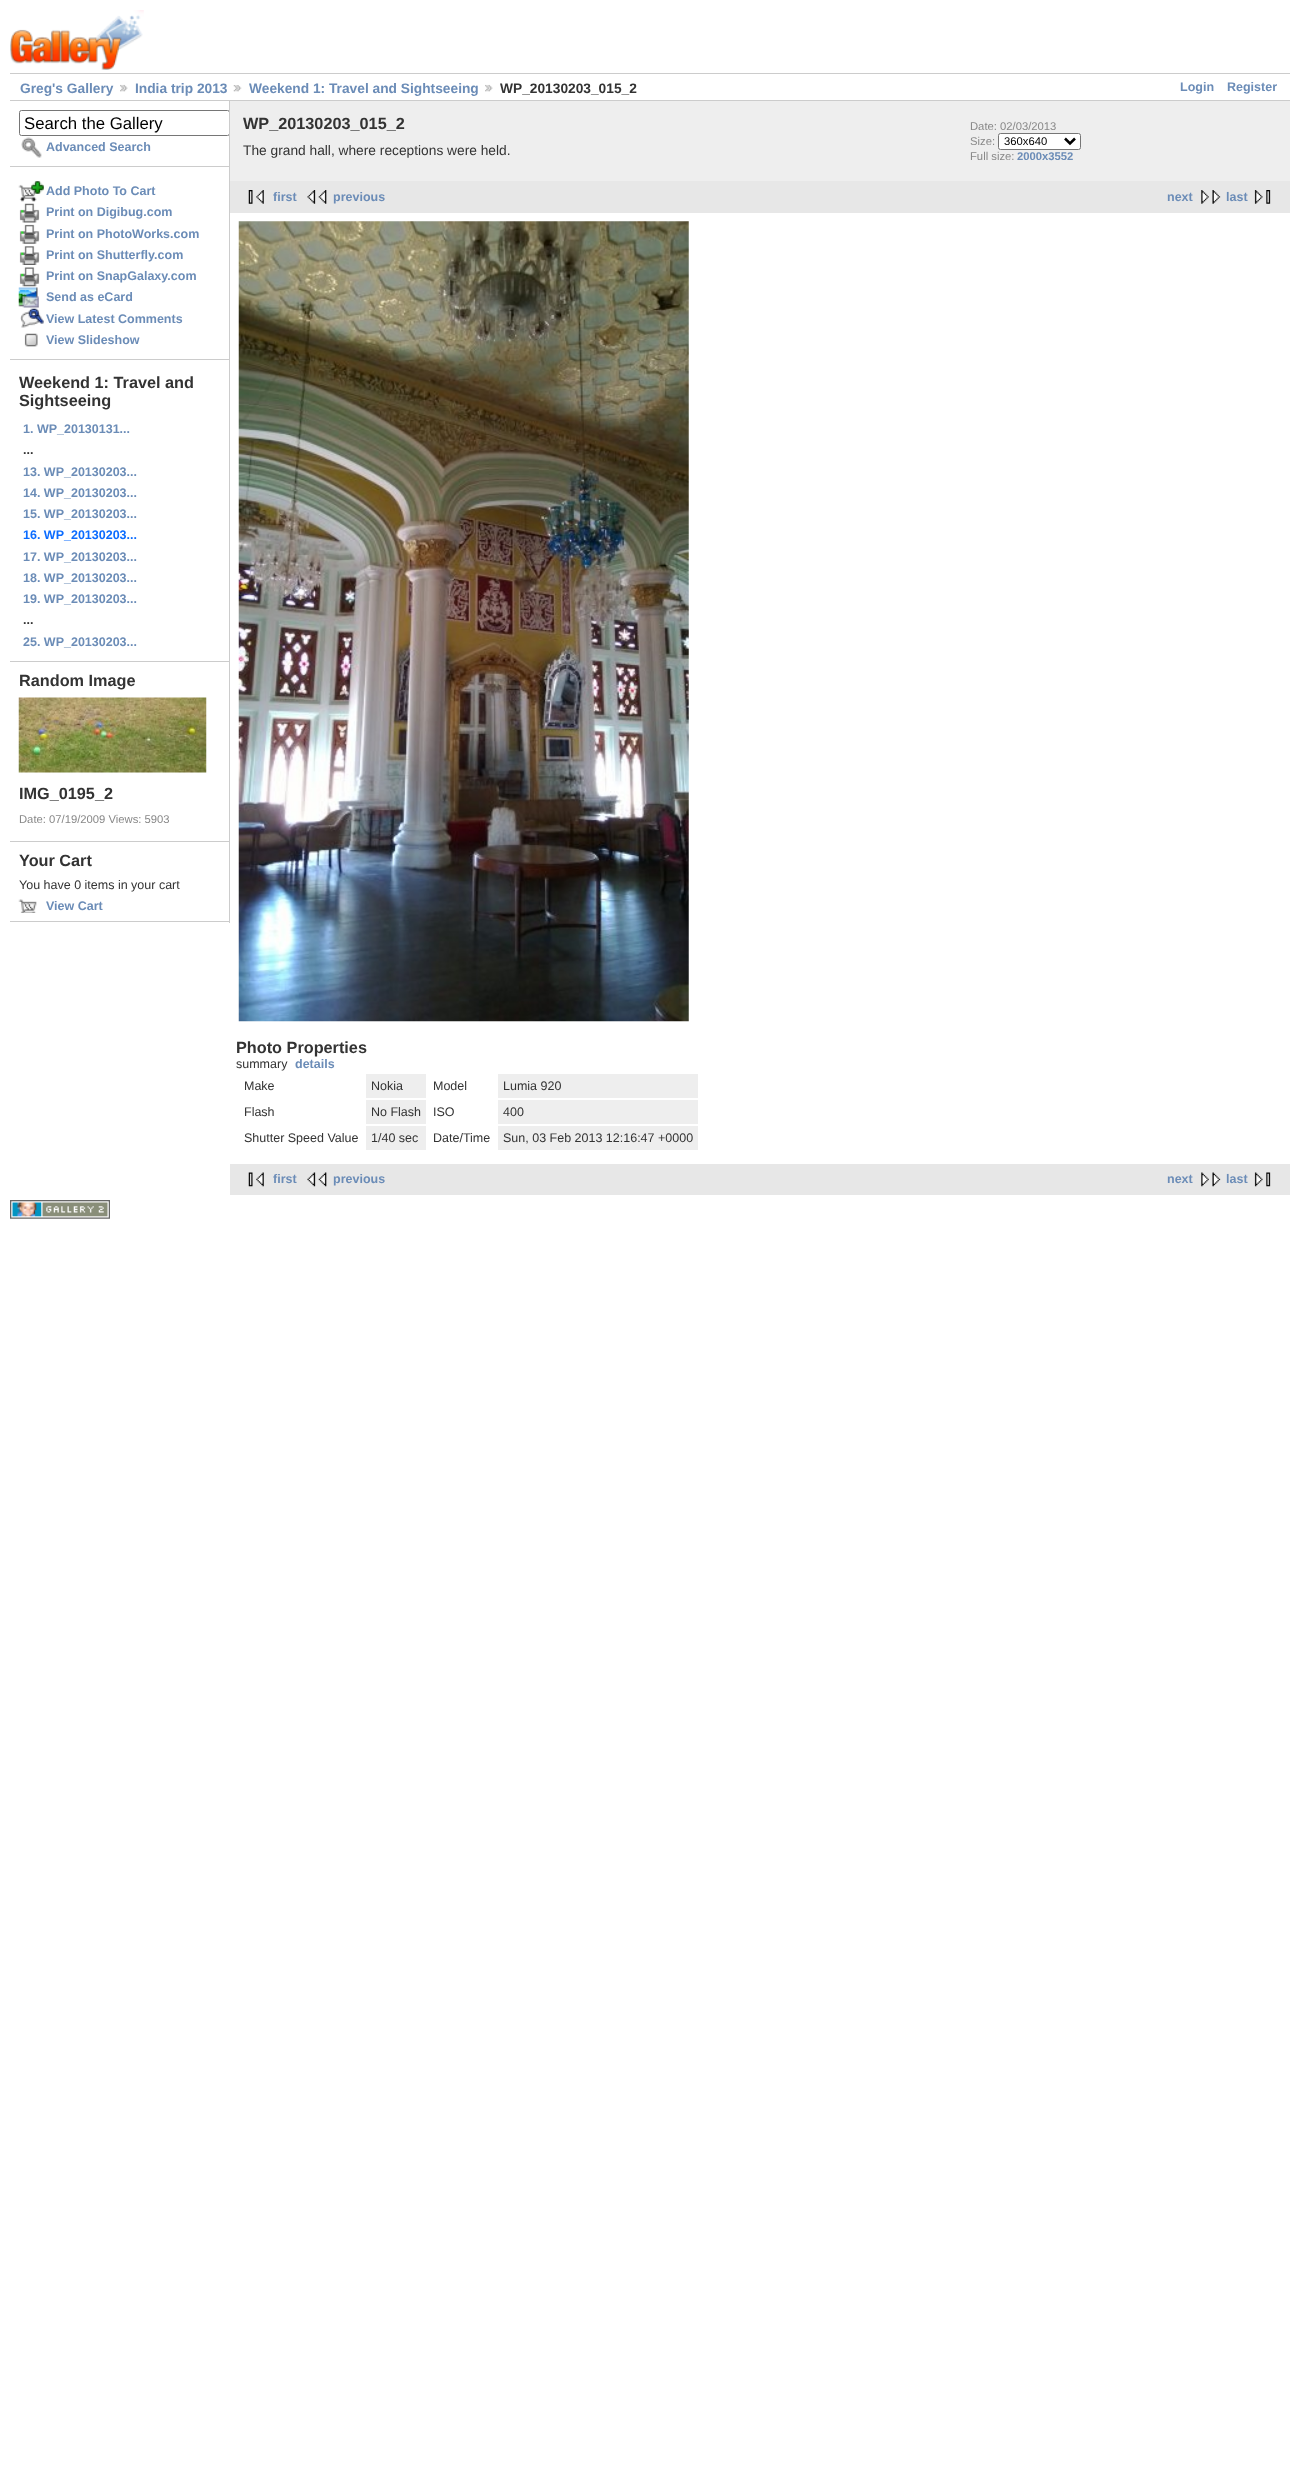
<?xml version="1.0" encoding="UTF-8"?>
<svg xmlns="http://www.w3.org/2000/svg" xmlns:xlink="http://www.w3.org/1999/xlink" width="1299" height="2471">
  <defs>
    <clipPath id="clip1"><rect x="10" y="101" width="219" height="822" /></clipPath>
  </defs>
  <rect width="100%" height="100%" fill="#ffffff" />
  <image x="10" y="10" width="134" height="60" xlink:href="image1.png" />
  <rect x="10" y="73" width="1280" height="1" fill="#cccccc" />
  <rect x="10" y="100" width="1280" height="1" fill="#cccccc" />
  <image x="120" y="84" width="8" height="8" xlink:href="image2.png" />
  <image x="233" y="85" width="9" height="7" xlink:href="image3.png" />
  <image x="485" y="84" width="8" height="8" xlink:href="image2.png" />
  <rect x="229" y="101" width="1" height="822" fill="#cccccc" />
  <rect x="10" y="166" width="219" height="1" fill="#cccccc" />
  <g clip-path="url(#clip1)">
    <rect x="19.5" y="110.5" width="210" height="25" rx="2" fill="none" stroke="#767676" />
  </g>
  <image x="21" y="137" width="21" height="21" xlink:href="image4.png" />
  <rect x="10" y="359" width="219" height="1" fill="#cccccc" />
  <image x="18" y="181" width="26" height="21" xlink:href="image5.png" />
  <image x="19" y="203" width="21" height="20" xlink:href="image6.png" />
  <image x="19" y="224" width="21" height="20" xlink:href="image7.png" />
  <image x="19" y="246" width="21" height="19" xlink:href="image8.png" />
  <image x="19" y="267" width="21" height="20" xlink:href="image9.png" />
  <image x="18" y="287" width="21" height="21" xlink:href="image10.png" />
  <image x="20" y="308" width="24" height="20" xlink:href="image11.png" />
  <image x="24" y="333" width="14" height="14" xlink:href="image12.png" />
  <rect x="10" y="661" width="219" height="1" fill="#cccccc" />
  <rect x="10" y="841" width="219" height="1" fill="#cccccc" />
  <image x="18" y="697" width="189" height="76" xlink:href="image13.png" />
  <rect x="10" y="921" width="219" height="1" fill="#cccccc" />
  <image x="18" y="899" width="19" height="14" xlink:href="image14.png" />
  <rect x="230" y="101" width="1060" height="80" fill="#eeeeee" />
  <rect x="998.5" y="133.5" width="82" height="16" rx="2" fill="#ffffff" stroke="#767676" />
  <path d="M 1065 138.5 l 5 5 l 5 -5" fill="none" stroke="#000000" stroke-width="2.5" />
  <rect x="230" y="181" width="1060" height="32" fill="#e7e7e7" />
  <image x="248" y="190" width="16" height="14" xlink:href="image15.png" />
  <image x="307" y="190" width="20" height="14" xlink:href="image16.png" />
  <image x="1201" y="190" width="20" height="14" xlink:href="image17.png" />
  <image x="1254" y="190" width="17" height="14" xlink:href="image18.png" />
  <image x="238" y="221" width="451" height="801" xlink:href="image19.png" />
  <rect x="366" y="1074" width="60" height="24" fill="#eeeeee" />
  <rect x="498" y="1074" width="200" height="24" fill="#eeeeee" />
  <rect x="366" y="1100" width="60" height="24" fill="#eeeeee" />
  <rect x="498" y="1100" width="200" height="24" fill="#eeeeee" />
  <rect x="366" y="1126" width="60" height="24" fill="#eeeeee" />
  <rect x="498" y="1126" width="200" height="24" fill="#eeeeee" />
  <rect x="230" y="1164" width="1060" height="31" fill="#e7e7e7" />
  <image x="248" y="1172" width="16" height="15" xlink:href="image20.png" />
  <image x="307" y="1172" width="20" height="15" xlink:href="image21.png" />
  <image x="1201" y="1172" width="20" height="15" xlink:href="image22.png" />
  <image x="1254" y="1172" width="17" height="15" xlink:href="image23.png" />
  <image x="10" y="1200" width="100" height="19" xlink:href="image24.png" />
  <text x="20" y="93" style="font-family: Liberation Sans; font-size: 13.75px; font-weight: bold; fill: #6b8cb7">Greg's Gallery</text>
  <text x="135" y="93" style="font-family: Liberation Sans; font-size: 13.75px; font-weight: bold; fill: #6b8cb7">India trip 2013</text>
  <text x="249" y="93" style="font-family: Liberation Sans; font-size: 13.75px; font-weight: bold; fill: #6b8cb7">Weekend 1: Travel and Sightseeing</text>
  <text x="500" y="93" style="font-family: Liberation Sans; font-size: 13.75px; font-weight: bold; fill: #333333">WP_20130203_015_2</text>
  <text x="1180" y="91" style="font-family: Liberation Sans; font-size: 12.5px; font-weight: bold; fill: #6b8cb7">Login</text>
  <text x="1227" y="91" style="font-family: Liberation Sans; font-size: 12.5px; font-weight: bold; fill: #6b8cb7">Register</text>
  <text x="24" y="129" style="font-family: Liberation Sans; font-size: 16.75px; fill: #000000">Search the Gallery</text>
  <text x="46" y="151" style="font-family: Liberation Sans; font-size: 12.5px; font-weight: bold; fill: #6b8cb7">Advanced Search</text>
  <text x="46" y="195" style="font-family: Liberation Sans; font-size: 12.5px; font-weight: bold; fill: #6b8cb7">Add Photo To Cart</text>
  <text x="46" y="216" style="font-family: Liberation Sans; font-size: 12.5px; font-weight: bold; fill: #6b8cb7">Print on Digibug.com</text>
  <text x="46" y="238" style="font-family: Liberation Sans; font-size: 12.5px; font-weight: bold; fill: #6b8cb7">Print on PhotoWorks.com</text>
  <text x="46" y="259" style="font-family: Liberation Sans; font-size: 12.5px; font-weight: bold; fill: #6b8cb7">Print on Shutterfly.com</text>
  <text x="46" y="280" style="font-family: Liberation Sans; font-size: 12.5px; font-weight: bold; fill: #6b8cb7">Print on SnapGalaxy.com</text>
  <text x="46" y="301" style="font-family: Liberation Sans; font-size: 12.5px; font-weight: bold; fill: #6b8cb7">Send as eCard</text>
  <text x="46" y="323" style="font-family: Liberation Sans; font-size: 12.5px; font-weight: bold; fill: #6b8cb7">View Latest Comments</text>
  <text x="46" y="344" style="font-family: Liberation Sans; font-size: 12.5px; font-weight: bold; fill: #6b8cb7">View Slideshow</text>
  <text x="19" y="388" style="font-family: Liberation Sans; font-size: 16.25px; font-weight: bold; fill: #333333">Weekend 1: Travel and</text>
  <text x="19" y="406" style="font-family: Liberation Sans; font-size: 16.25px; font-weight: bold; fill: #333333">Sightseeing</text>
  <text x="23" y="433" style="font-family: Liberation Sans; font-size: 12.5px; font-weight: bold; fill: #6b8cb7">1. WP_20130131...</text>
  <text x="23" y="454" style="font-family: Liberation Sans; font-size: 12.5px; font-weight: bold; fill: #333333">...</text>
  <text x="23" y="476" style="font-family: Liberation Sans; font-size: 12.5px; font-weight: bold; fill: #6b8cb7">13. WP_20130203...</text>
  <text x="23" y="497" style="font-family: Liberation Sans; font-size: 12.5px; font-weight: bold; fill: #6b8cb7">14. WP_20130203...</text>
  <text x="23" y="518" style="font-family: Liberation Sans; font-size: 12.5px; font-weight: bold; fill: #6b8cb7">15. WP_20130203...</text>
  <text x="23" y="539" style="font-family: Liberation Sans; font-size: 12.5px; font-weight: bold; fill: #0b6cff">16. WP_20130203...</text>
  <text x="23" y="561" style="font-family: Liberation Sans; font-size: 12.5px; font-weight: bold; fill: #6b8cb7">17. WP_20130203...</text>
  <text x="23" y="582" style="font-family: Liberation Sans; font-size: 12.5px; font-weight: bold; fill: #6b8cb7">18. WP_20130203...</text>
  <text x="23" y="603" style="font-family: Liberation Sans; font-size: 12.5px; font-weight: bold; fill: #6b8cb7">19. WP_20130203...</text>
  <text x="23" y="624" style="font-family: Liberation Sans; font-size: 12.5px; font-weight: bold; fill: #333333">...</text>
  <text x="23" y="646" style="font-family: Liberation Sans; font-size: 12.5px; font-weight: bold; fill: #6b8cb7">25. WP_20130203...</text>
  <text x="19" y="686" style="font-family: Liberation Sans; font-size: 16.25px; font-weight: bold; fill: #333333">Random Image</text>
  <text x="19" y="799" style="font-family: Liberation Sans; font-size: 16.25px; font-weight: bold; fill: #333333">IMG_0195_2</text>
  <text x="19" y="823" style="font-family: Liberation Sans; font-size: 11.25px; fill: #888888">Date: 07/19/2009 Views: 5903</text>
  <text x="19" y="866" style="font-family: Liberation Sans; font-size: 16.25px; font-weight: bold; fill: #333333">Your Cart</text>
  <text x="19" y="889" style="font-family: Liberation Sans; font-size: 12.5px; fill: #333333">You have 0 items in your cart</text>
  <text x="46" y="910" style="font-family: Liberation Sans; font-size: 12.5px; font-weight: bold; fill: #6b8cb7">View Cart</text>
  <text x="243" y="129" style="font-family: Liberation Sans; font-size: 16.25px; font-weight: bold; fill: #333333">WP_20130203_015_2</text>
  <text x="243" y="155" style="font-family: Liberation Sans; font-size: 13.75px; fill: #333333">The grand hall, where receptions were held.</text>
  <text x="970" y="130" style="font-family: Liberation Sans; font-size: 11.25px; fill: #888888">Date: 02/03/2013</text>
  <text x="970" y="145" style="font-family: Liberation Sans; font-size: 11.25px; fill: #888888">Size:</text>
  <text x="1004" y="145" style="font-family: Liberation Sans; font-size: 11.25px; fill: #000000">360x640</text>
  <text x="970" y="160" style="font-family: Liberation Sans; font-size: 11.25px; fill: #888888">Full size:</text>
  <text x="1017" y="160" style="font-family: Liberation Sans; font-size: 11.25px; font-weight: bold; fill: #6b8cb7">2000x3552</text>
  <text x="273" y="201" style="font-family: Liberation Sans; font-size: 12.5px; font-weight: bold; fill: #6b8cb7">first</text>
  <text x="333" y="201" style="font-family: Liberation Sans; font-size: 12.5px; font-weight: bold; fill: #6b8cb7">previous</text>
  <text x="1167" y="201" style="font-family: Liberation Sans; font-size: 12.5px; font-weight: bold; fill: #6b8cb7">next</text>
  <text x="1226" y="201" style="font-family: Liberation Sans; font-size: 12.5px; font-weight: bold; fill: #6b8cb7">last</text>
  <text x="236" y="1053" style="font-family: Liberation Sans; font-size: 16.25px; font-weight: bold; fill: #333333">Photo Properties</text>
  <text x="236" y="1068" style="font-family: Liberation Sans; font-size: 12.5px; fill: #333333">summary</text>
  <text x="295" y="1068" style="font-family: Liberation Sans; font-size: 12.5px; font-weight: bold; fill: #6b8cb7">details</text>
  <text x="244" y="1090" style="font-family: Liberation Sans; font-size: 12.5px; fill: #333333">Make</text>
  <text x="371" y="1090" style="font-family: Liberation Sans; font-size: 12.5px; fill: #333333">Nokia</text>
  <text x="433" y="1090" style="font-family: Liberation Sans; font-size: 12.5px; fill: #333333">Model</text>
  <text x="503" y="1090" style="font-family: Liberation Sans; font-size: 12.5px; fill: #333333">Lumia 920</text>
  <text x="244" y="1116" style="font-family: Liberation Sans; font-size: 12.5px; fill: #333333">Flash</text>
  <text x="371" y="1116" style="font-family: Liberation Sans; font-size: 12.5px; fill: #333333">No Flash</text>
  <text x="433" y="1116" style="font-family: Liberation Sans; font-size: 12.5px; fill: #333333">ISO</text>
  <text x="503" y="1116" style="font-family: Liberation Sans; font-size: 12.5px; fill: #333333">400</text>
  <text x="244" y="1142" style="font-family: Liberation Sans; font-size: 12.5px; fill: #333333">Shutter Speed Value</text>
  <text x="371" y="1142" style="font-family: Liberation Sans; font-size: 12.5px; fill: #333333">1/40 sec</text>
  <text x="433" y="1142" style="font-family: Liberation Sans; font-size: 12.5px; fill: #333333">Date/Time</text>
  <text x="503" y="1142" style="font-family: Liberation Sans; font-size: 12.5px; fill: #333333">Sun, 03 Feb 2013 12:16:47 +0000</text>
  <text x="273" y="1183" style="font-family: Liberation Sans; font-size: 12.5px; font-weight: bold; fill: #6b8cb7">first</text>
  <text x="333" y="1183" style="font-family: Liberation Sans; font-size: 12.5px; font-weight: bold; fill: #6b8cb7">previous</text>
  <text x="1167" y="1183" style="font-family: Liberation Sans; font-size: 12.5px; font-weight: bold; fill: #6b8cb7">next</text>
  <text x="1226" y="1183" style="font-family: Liberation Sans; font-size: 12.5px; font-weight: bold; fill: #6b8cb7">last</text>
</svg>
